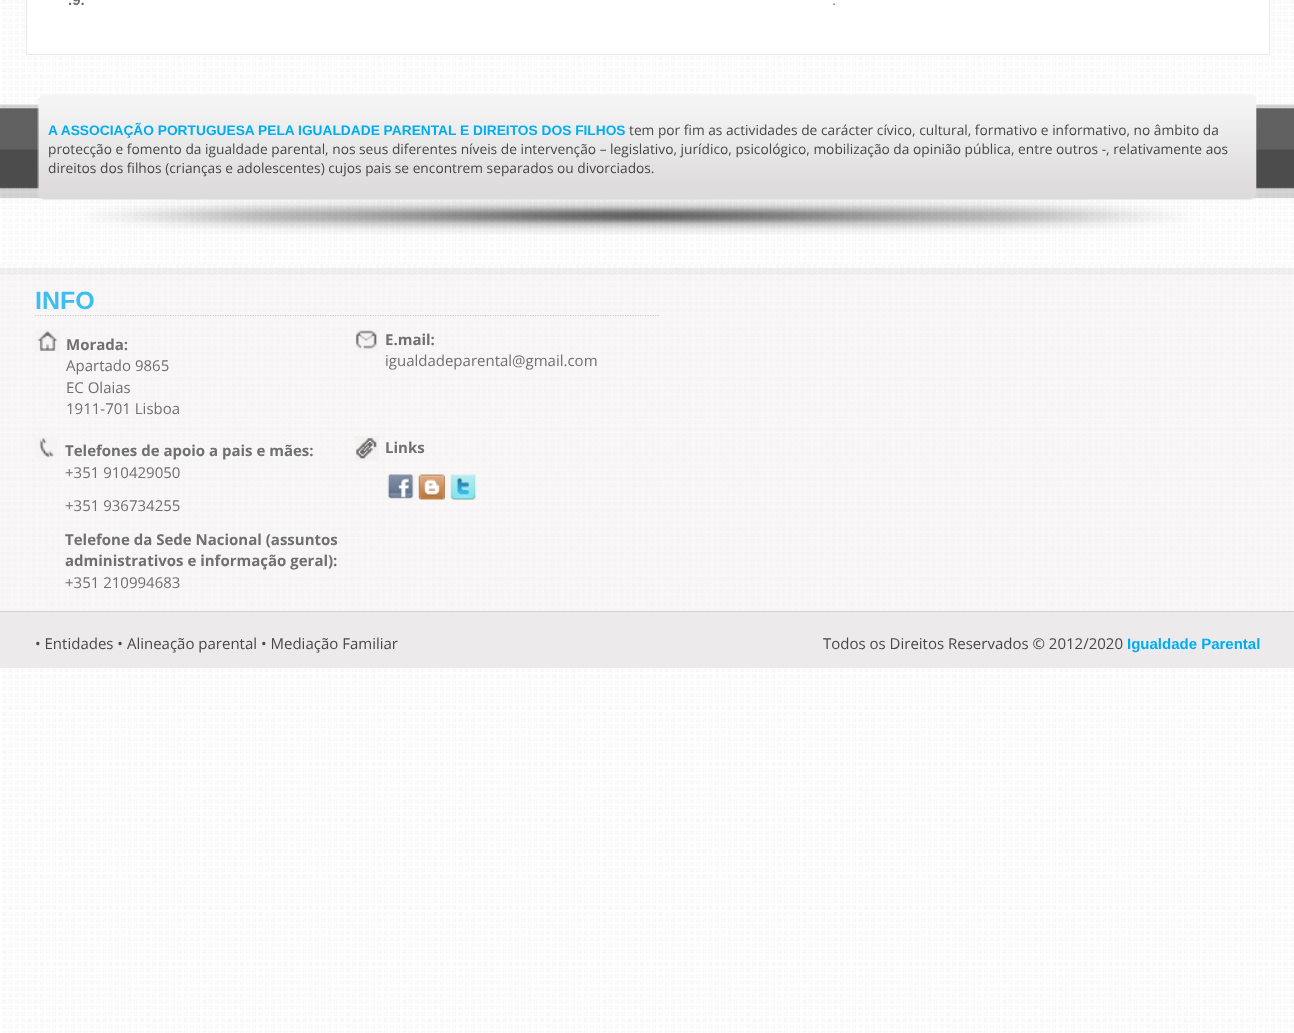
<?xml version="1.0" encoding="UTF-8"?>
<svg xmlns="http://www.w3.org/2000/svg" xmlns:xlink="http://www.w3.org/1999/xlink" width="1294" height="1033">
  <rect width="100%" height="100%" fill="#ffffff" />
  <image x="2" y="0" width="1292" height="1033" xlink:href="image1.png" />
  <rect x="26.5" y="-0.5" width="1243" height="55" fill="#ffffff" stroke="#e9e9e9" />
  <image x="0" y="104" width="1294" height="95" xlink:href="image2.png" />
  <image x="37" y="94" width="1220" height="141" xlink:href="image3.png" />
  <image x="0" y="264" width="1294" height="347" xlink:href="image4.png" />
  <path d="M 35 315.5 h 625" fill="none" stroke="#c9c8c8" stroke-width="1.2" stroke-dasharray="1.25 1.25" />
  <image x="35" y="330" width="25" height="22" xlink:href="image5.png" />
  <image x="355" y="330" width="23" height="22" xlink:href="image6.png" />
  <image x="35" y="437" width="22" height="21" xlink:href="image7.png" />
  <image x="355" y="436" width="24" height="25" xlink:href="image8.png" />
  <image x="387" y="474" width="27" height="25" xlink:href="image9.png" />
  <image x="418" y="474" width="27" height="26" xlink:href="image10.png" />
  <image x="450" y="474" width="27" height="26" xlink:href="image11.png" />
  <rect y="612" width="1294" height="56" fill="#eceaea" />
  <rect y="611" width="1294" height="1" fill="#d2d0d0" />
  <text x="68" y="5" style="font-family: Liberation Sans; font-size: 15px; font-weight: bold; fill: #707070">.9.</text>
  <text x="832" y="5" style="font-family: Liberation Sans; font-size: 15px; fill: #707070">.</text>
  <text x="48" y="135" style="font-family: Liberation Sans; font-size: 13.75px; font-weight: bold; fill: #00aeef">A ASSOCIAÇÃO PORTUGUESA PELA IGUALDADE PARENTAL E DIREITOS DOS FILHOS</text>
  <text x="629" y="135" style="font-family: Open Sans; font-size: 13.75px; fill: #484848">tem por fim as actividades de carácter cívico, cultural, formativo e informativo, no âmbito da</text>
  <text x="48" y="154" style="font-family: Open Sans; font-size: 13.75px; fill: #484848">protecção e fomento da igualdade parental, nos seus diferentes níveis de intervenção – legislativo, jurídico, psicológico, mobilização da opinião pública, entre outros -, relativamente aos</text>
  <text x="48" y="173" style="font-family: Open Sans; font-size: 13.75px; fill: #484848">direitos dos filhos (crianças e adolescentes) cujos pais se encontrem separados ou divorciados.</text>
  <text x="35" y="309" style="font-family: Liberation Sans; font-size: 25px; font-weight: bold; fill: #3cbeee">INFO</text>
  <text x="66" y="350" style="font-family: Open Sans; font-size: 15px; font-weight: bold; fill: #707070">Morada:</text>
  <text x="66" y="371" style="font-family: Open Sans; font-size: 15px; fill: #707070">Apartado 9865</text>
  <text x="66" y="393" style="font-family: Open Sans; font-size: 15px; fill: #707070">EC Olaias</text>
  <text x="66" y="414" style="font-family: Open Sans; font-size: 15px; fill: #707070">1911-701 Lisboa</text>
  <text x="385" y="345" style="font-family: Open Sans; font-size: 15px; font-weight: bold; fill: #707070">E.mail:</text>
  <text x="385" y="366" style="font-family: Open Sans; font-size: 15px; fill: #707070">igualdadeparental@gmail.com</text>
  <text x="65" y="456" style="font-family: Open Sans; font-size: 15px; font-weight: bold; fill: #707070">Telefones de apoio a pais e mães:</text>
  <text x="65" y="478" style="font-family: Open Sans; font-size: 15px; fill: #707070">+351 910429050</text>
  <text x="65" y="511" style="font-family: Open Sans; font-size: 15px; fill: #707070">+351 936734255</text>
  <text x="65" y="545" style="font-family: Open Sans; font-size: 15px; font-weight: bold; fill: #707070">Telefone da Sede Nacional (assuntos</text>
  <text x="65" y="566" style="font-family: Open Sans; font-size: 15px; font-weight: bold; fill: #707070">administrativos e informação geral):</text>
  <text x="65" y="588" style="font-family: Open Sans; font-size: 15px; fill: #707070">+351 210994683</text>
  <text x="385" y="453" style="font-family: Open Sans; font-size: 15px; font-weight: bold; fill: #707070">Links</text>
  <text x="35" y="649" style="font-family: Open Sans; font-size: 15px; fill: #484848">• Entidades • Alineação parental • Mediação Familiar</text>
  <text x="823" y="649" style="font-family: Open Sans; font-size: 15px; fill: #484848">Todos os Direitos Reservados © 2012/2020</text>
  <text x="1127" y="649" style="font-family: Liberation Sans; font-size: 15px; font-weight: bold; fill: #00aeef">Igualdade Parental</text>
</svg>
